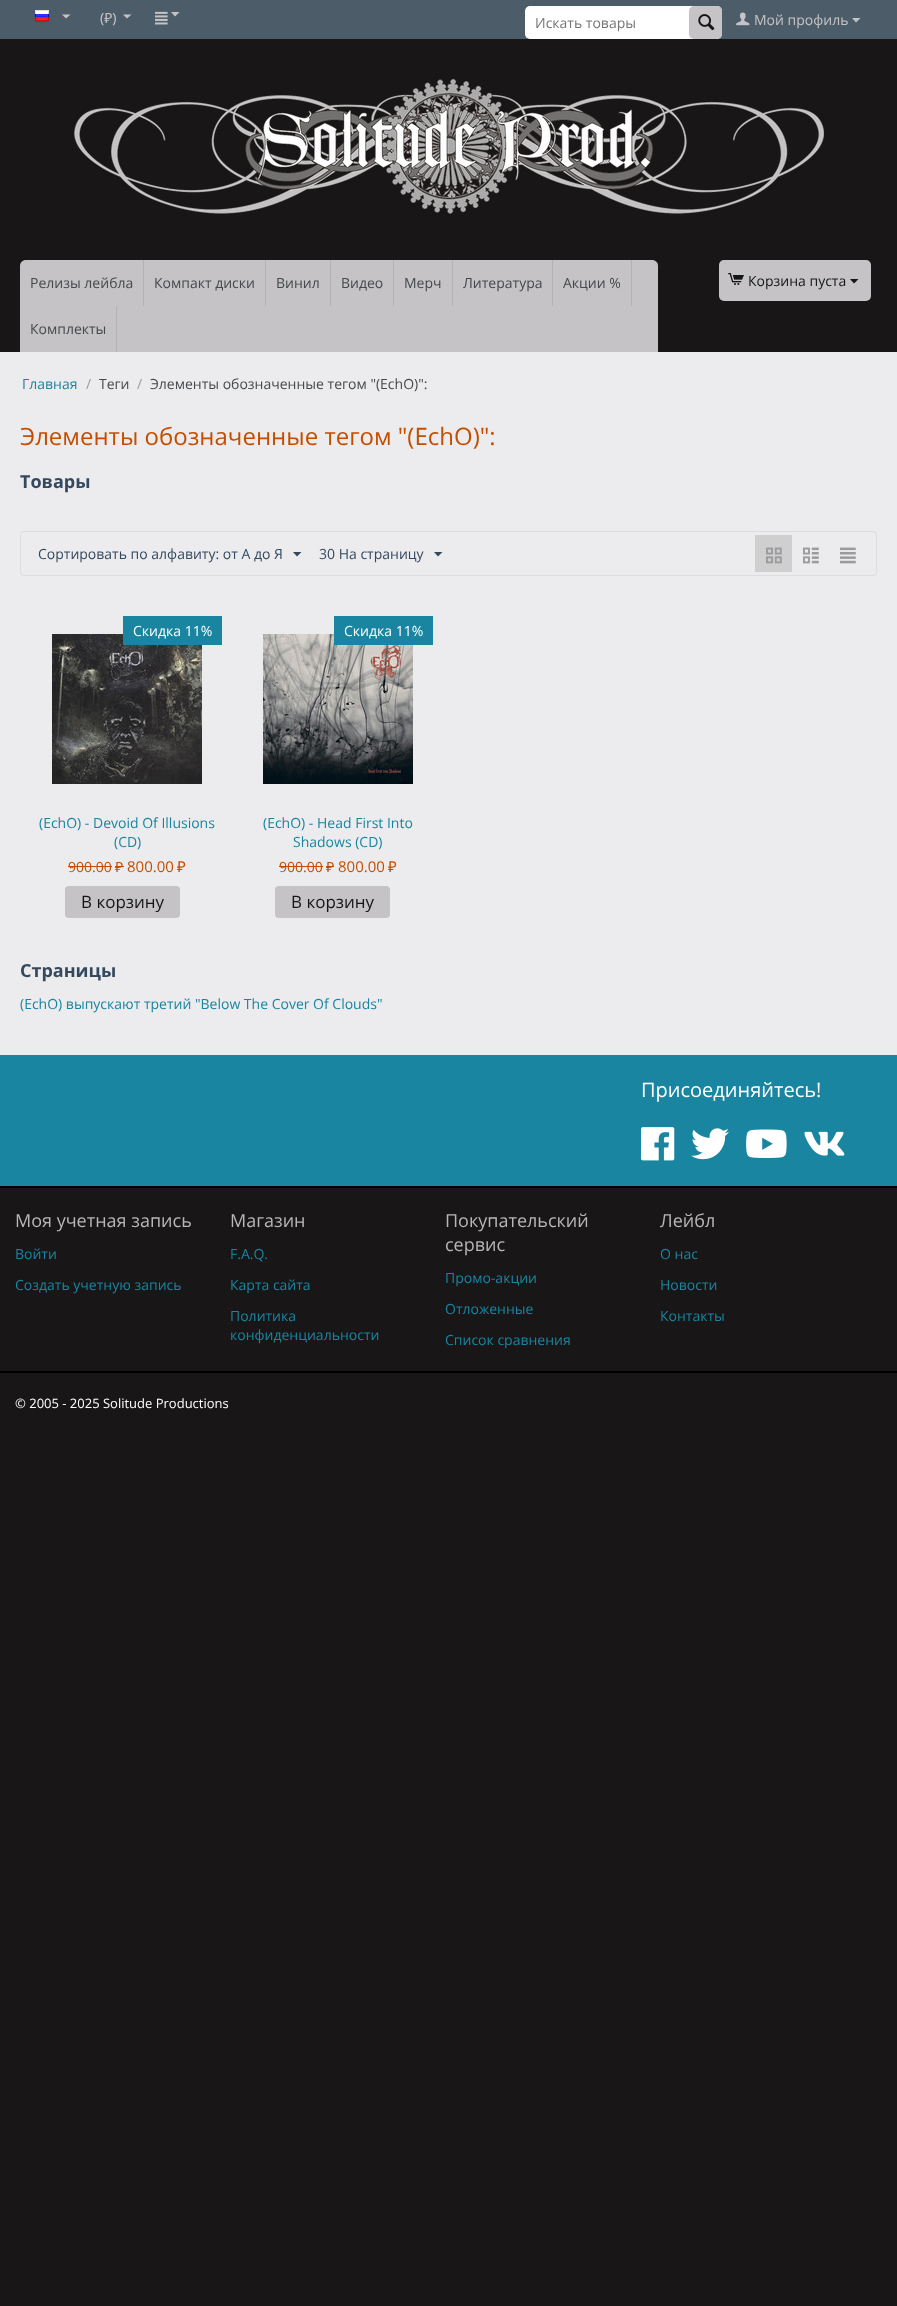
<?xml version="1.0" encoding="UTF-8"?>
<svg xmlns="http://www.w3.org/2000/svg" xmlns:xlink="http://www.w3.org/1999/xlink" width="897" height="2306">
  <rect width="100%" height="100%" fill="#181616" />
  <rect width="897" height="39" fill="#4c5c68" />
  <image x="34" y="10" width="16" height="13" xlink:href="image1.png" />
  <path d="M 66 18.5 l -4 -4 h 8.5 z" fill="#c5c3c6" />
  <image x="155" y="11" width="13" height="14" xlink:href="image2.png" />
  <path d="M 127 18.5 l -4 -4 h 8.5 z m 48 -2 l -4 -4.5 h 8.5 z" fill="#c5c3c6" />
  <rect x="525" y="6" width="197" height="33" rx="5" fill="#ffffff" />
  <rect x="689" y="6" width="33" height="33" rx="5" fill="#c5c3c6" />
  <image x="698" y="14" width="17" height="17" xlink:href="image3.png" />
  <image x="736" y="12" width="14" height="14" xlink:href="image4.png" />
  <path d="M 856 22.5 l -4 -4.5 h 8.5 z" fill="#c5c3c6" />
  <image x="74" y="79" width="750" height="135" xlink:href="image5.png" />
  <path d="M 26 260 h 626 c 3.5 0 6 2.5 6 6 v 86 h -638 v -86 c 0 -3.5 2.5 -6 6 -6 z" fill="#c5c3c6" />
  <rect x="143" y="260" width="1" height="46" fill="#b3b1b5" />
  <rect x="265" y="260" width="1" height="46" fill="#b3b1b5" />
  <rect x="330" y="260" width="1" height="46" fill="#b3b1b5" />
  <rect x="393" y="260" width="1" height="46" fill="#b3b1b5" />
  <rect x="452" y="260" width="1" height="46" fill="#b3b1b5" />
  <rect x="552" y="260" width="1" height="46" fill="#b3b1b5" />
  <rect x="631" y="260" width="1" height="46" fill="#b3b1b5" />
  <rect x="116" y="306" width="1" height="46" fill="#b3b1b5" />
  <rect x="719" y="260" width="152" height="41" rx="5" fill="#c5c3c6" />
  <image x="728" y="273" width="16" height="12" xlink:href="image6.png" />
  <path d="M 854 283.5 l -4 -4.5 h 8.5 z" fill="#151617" />
  <rect y="352" width="897" height="703" fill="#ececee" />
  <rect x="20.5" y="531.5" width="856" height="44" rx="3.5" fill="none" stroke="#dcdcdd" />
  <path d="M 297 556.5 l -4 -4.5 h 8.5 z" fill="#34495e" />
  <path d="M 438 556.5 l -4 -4.5 h 8.5 z" fill="#34495e" />
  <rect x="755" y="535" width="37" height="37" fill="#cfcfd0" />
  <image x="766" y="547" width="16" height="17" xlink:href="image7.png" />
  <image x="803" y="547" width="16" height="17" xlink:href="image8.png" />
  <image x="840" y="547" width="16" height="17" xlink:href="image9.png" />
  <rect x="31.5" y="615.5" width="191" height="187" fill="none" stroke="#ebebeb" />
  <image x="52" y="634" width="150" height="150" xlink:href="image10.png" />
  <rect x="123" y="616" width="99" height="29" fill="#1985a1" />
  <rect x="68" y="866" width="44" height="1" fill="#c44e00" />
  <rect x="115" y="866" width="9" height="1" fill="#c44e00" />
  <rect x="65" y="886" width="115" height="32" rx="4" fill="#c5c3c6" />
  <rect x="242.5" y="615.5" width="191" height="187" fill="none" stroke="#ebebeb" />
  <image x="263" y="634" width="150" height="150" xlink:href="image11.png" />
  <rect x="334" y="616" width="99" height="29" fill="#1985a1" />
  <rect x="279" y="866" width="44" height="1" fill="#c44e00" />
  <rect x="326" y="866" width="8" height="1" fill="#c44e00" />
  <rect x="275" y="886" width="115" height="32" rx="4" fill="#c5c3c6" />
  <rect y="1055" width="897" height="131" fill="#1985a1" />
  <rect y="1186" width="897" height="2" fill="#000000" />
  <image x="641" y="1127" width="34" height="34" xlink:href="image12.png" />
  <image x="691" y="1128" width="38" height="32" xlink:href="image13.png" />
  <image x="746" y="1129" width="41" height="29" xlink:href="image14.png" />
  <image x="804" y="1131" width="41" height="25" xlink:href="image15.png" />
  <rect y="1371" width="897" height="2" fill="#000000" />
  <text x="100" y="23" style="font-family: Noto Sans; font-size: 14px; fill: #c5c3c6">(₽)</text>
  <text x="535" y="28" style="font-family: Open Sans; font-size: 14px; fill: #757575">Искать товары</text>
  <text x="754" y="25" style="font-family: Open Sans; font-size: 14px; fill: #c5c3c6">Мой профиль</text>
  <text x="30" y="288" style="font-family: Open Sans; font-size: 14px; fill: #46494c">Релизы лейбла</text>
  <text x="154" y="288" style="font-family: Open Sans; font-size: 14px; fill: #46494c">Компакт диски</text>
  <text x="276" y="288" style="font-family: Open Sans; font-size: 14px; fill: #46494c">Винил</text>
  <text x="341" y="288" style="font-family: Open Sans; font-size: 14px; fill: #46494c">Видео</text>
  <text x="404" y="288" style="font-family: Open Sans; font-size: 14px; fill: #46494c">Мерч</text>
  <text x="463" y="288" style="font-family: Open Sans; font-size: 14px; fill: #46494c">Литература</text>
  <text x="563" y="288" style="font-family: Open Sans; font-size: 14px; fill: #46494c">Акции %</text>
  <text x="30" y="334" style="font-family: Open Sans; font-size: 14px; fill: #46494c">Комплекты</text>
  <text x="748" y="286" style="font-family: Open Sans; font-size: 14px; fill: #151617">Корзина пуста</text>
  <text x="22" y="389" style="font-family: Open Sans; font-size: 14px; fill: #1985a1">Главная</text>
  <text x="86" y="389" style="font-family: Open Sans; font-size: 14px; fill: #9b9b9e">/</text>
  <text x="99" y="389" style="font-family: Open Sans; font-size: 14px; fill: #46494c">Теги</text>
  <text x="137" y="389" style="font-family: Open Sans; font-size: 14px; fill: #9b9b9e">/</text>
  <text x="150" y="389" style="font-family: Open Sans; font-size: 14px; fill: #46494c">Элементы обозначенные тегом "(EchO)":</text>
  <text x="20" y="445" style="font-family: Open Sans; font-size: 24px; fill: #c44e00">Элементы обозначенные тегом "(EchO)":</text>
  <text x="20" y="488" style="font-family: Open Sans; font-size: 18px; font-weight: bold; fill: #34495e">Товары</text>
  <text x="38" y="559" style="font-family: Open Sans; font-size: 14px; fill: #34495e">Сортировать по алфавиту: от А до Я</text>
  <text x="319" y="559" style="font-family: Open Sans; font-size: 14px; fill: #34495e">30 На страницу</text>
  <text x="133" y="636" style="font-family: Open Sans; font-size: 14px; fill: #ffffff">Скидка 11%</text>
  <text x="39" y="828" style="font-family: Open Sans; font-size: 14px; fill: #1985a1">(EchO) - Devoid Of Illusions</text>
  <text x="114" y="847" style="font-family: Open Sans; font-size: 14px; fill: #1985a1">(CD)</text>
  <text x="68" y="872" style="font-family: Open Sans; font-size: 14px; fill: #c44e00">900.00</text>
  <text x="115" y="872" style="font-family: Noto Sans; font-size: 14px; fill: #c44e00">₽</text>
  <text x="127" y="872" style="font-family: Open Sans; font-size: 15px; fill: #c44e00">800.00</text>
  <text x="177" y="872" style="font-family: Noto Sans; font-size: 15px; fill: #c44e00">₽</text>
  <text x="81" y="908" style="font-family: Open Sans; font-size: 17px; fill: #151617">В корзину</text>
  <text x="344" y="636" style="font-family: Open Sans; font-size: 14px; fill: #ffffff">Скидка 11%</text>
  <text x="263" y="828" style="font-family: Open Sans; font-size: 14px; fill: #1985a1">(EchO) - Head First Into</text>
  <text x="293" y="847" style="font-family: Open Sans; font-size: 14px; fill: #1985a1">Shadows (CD)</text>
  <text x="279" y="872" style="font-family: Open Sans; font-size: 14px; fill: #c44e00">900.00</text>
  <text x="326" y="872" style="font-family: Noto Sans; font-size: 14px; fill: #c44e00">₽</text>
  <text x="338" y="872" style="font-family: Open Sans; font-size: 15px; fill: #c44e00">800.00</text>
  <text x="388" y="872" style="font-family: Noto Sans; font-size: 15px; fill: #c44e00">₽</text>
  <text x="291" y="908" style="font-family: Open Sans; font-size: 17px; fill: #151617">В корзину</text>
  <text x="20" y="977" style="font-family: Open Sans; font-size: 18px; font-weight: bold; fill: #34495e">Страницы</text>
  <text x="20" y="1009" style="font-family: Open Sans; font-size: 14px; fill: #1985a1">(EchO) выпускают третий "Below The Cover Of Clouds"</text>
  <text x="641" y="1097" style="font-family: Open Sans; font-size: 20px; fill: #ffffff">Присоединяйтесь!</text>
  <text x="15" y="1227" style="font-family: Open Sans; font-size: 18px; fill: #b7b7b7">Моя учетная запись</text>
  <text x="15" y="1259" style="font-family: Open Sans; font-size: 14px; fill: #1985a1">Войти</text>
  <text x="15" y="1290" style="font-family: Open Sans; font-size: 14px; fill: #1985a1">Создать учетную запись</text>
  <text x="230" y="1227" style="font-family: Open Sans; font-size: 18px; fill: #b7b7b7">Магазин</text>
  <text x="230" y="1259" style="font-family: Open Sans; font-size: 14px; fill: #1985a1">F.A.Q.</text>
  <text x="230" y="1290" style="font-family: Open Sans; font-size: 14px; fill: #1985a1">Карта сайта</text>
  <text x="230" y="1321" style="font-family: Open Sans; font-size: 14px; fill: #1985a1">Политика</text>
  <text x="230" y="1340" style="font-family: Open Sans; font-size: 14px; fill: #1985a1">конфиденциальности</text>
  <text x="445" y="1227" style="font-family: Open Sans; font-size: 18px; fill: #b7b7b7">Покупательский</text>
  <text x="445" y="1251" style="font-family: Open Sans; font-size: 18px; fill: #b7b7b7">сервис</text>
  <text x="445" y="1283" style="font-family: Open Sans; font-size: 14px; fill: #1985a1">Промо-акции</text>
  <text x="445" y="1314" style="font-family: Open Sans; font-size: 14px; fill: #1985a1">Отложенные</text>
  <text x="445" y="1345" style="font-family: Open Sans; font-size: 14px; fill: #1985a1">Список сравнения</text>
  <text x="660" y="1227" style="font-family: Open Sans; font-size: 18px; fill: #b7b7b7">Лейбл</text>
  <text x="660" y="1259" style="font-family: Open Sans; font-size: 14px; fill: #1985a1">О нас</text>
  <text x="660" y="1290" style="font-family: Open Sans; font-size: 14px; fill: #1985a1">Новости</text>
  <text x="660" y="1321" style="font-family: Open Sans; font-size: 14px; fill: #1985a1">Контакты</text>
  <text x="15" y="1408" style="font-family: Open Sans; font-size: 13px; fill: #ffffff">© 2005 - 2025 Solitude Productions</text>
</svg>
